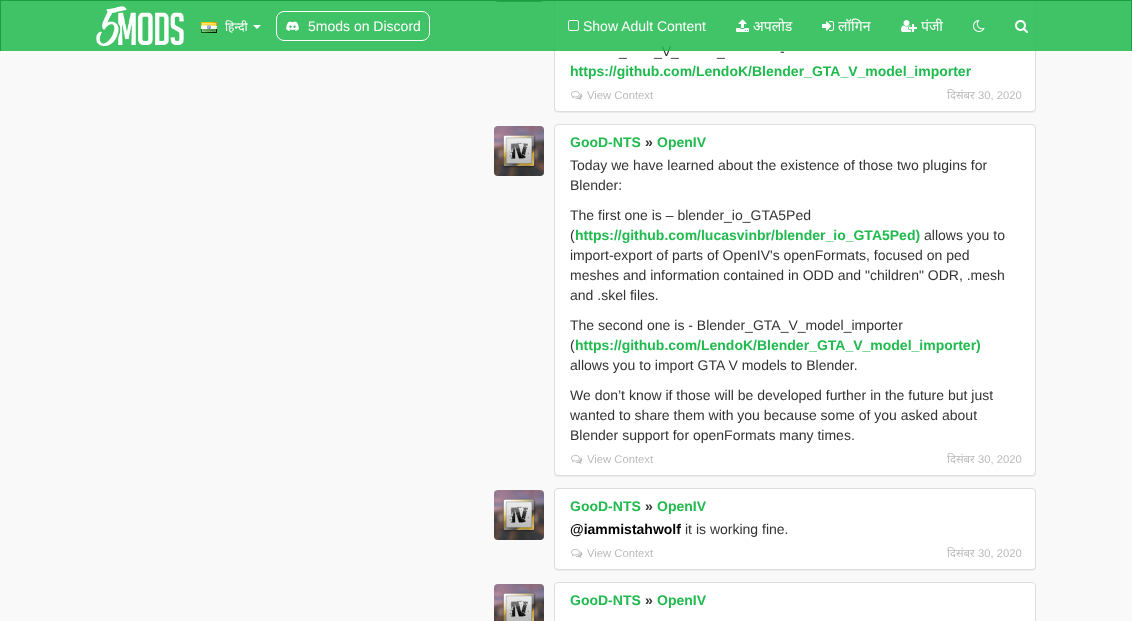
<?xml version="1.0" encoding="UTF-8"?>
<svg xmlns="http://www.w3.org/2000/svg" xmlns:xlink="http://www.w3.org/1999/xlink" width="1132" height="621">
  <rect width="100%" height="100%" fill="#f9f9f9" />
  <rect x="554" y="-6" width="482" height="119" rx="4" fill="#000000" fill-opacity="0.05" filter="blur(0.5px)" />
  <rect x="554.5" y="-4.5" width="481" height="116" rx="3.5" fill="#ffffff" stroke="#dddddd" />
  <rect width="1132" height="1" fill="#1b9e42" />
  <rect x="1131" width="1" height="51" fill="#1b9e42" />
  <rect width="1" height="51" fill="#1b9e42" />
  <image x="495" y="1" width="48" height="1" xlink:href="image10.png" />
  <image x="571" y="91" width="12" height="9" xlink:href="image11.png" />
  <image x="494" y="126" width="50" height="50" xlink:href="image12.png" />
  <rect x="554" y="125" width="482" height="352" rx="4" fill="#000000" fill-opacity="0.05" filter="blur(0.5px)" />
  <rect x="554.5" y="124.5" width="481" height="351" rx="3.5" fill="#ffffff" stroke="#dddddd" />
  <image x="571" y="455" width="12" height="9" xlink:href="image11.png" />
  <image x="494" y="490" width="50" height="50" xlink:href="image13.png" />
  <rect x="554" y="489" width="482" height="82" rx="4" fill="#000000" fill-opacity="0.05" filter="blur(0.5px)" />
  <rect x="554.5" y="488.5" width="481" height="81" rx="3.5" fill="#ffffff" stroke="#dddddd" />
  <image x="571" y="549" width="12" height="9" xlink:href="image11.png" />
  <image x="494" y="584" width="50" height="37" xlink:href="image14.png" />
  <rect x="554.5" y="582.5" width="481" height="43" rx="3.5" fill="#ffffff" stroke="#dddddd" />
  <text x="654" y="56" style="font-family: Liberation Sans; font-size: 14px; fill: #333333">_V_</text>
  <rect x="1" y="1" width="1130" height="50" fill="#20ba4e" fill-opacity="0.85" />
  <image x="1015" y="20" width="13" height="13" xlink:href="image9.png" />
  <image x="973" y="20" width="12" height="12" xlink:href="image8.png" />
  <text x="921" y="31" style="font-family: Noto Sans; font-size: 14px; fill: #ffffff">पंजी</text>
  <image x="901" y="20" width="16" height="12" xlink:href="image7.png" />
  <text x="838" y="31" style="font-family: Noto Sans; font-size: 14px; fill: #ffffff">लॉगिन</text>
  <image x="822" y="21" width="12" height="10" xlink:href="image6.png" />
  <text x="753" y="31" style="font-family: Noto Sans; font-size: 14px; fill: #ffffff">अपलोड</text>
  <image x="736" y="19" width="13" height="13" xlink:href="image5.png" />
  <text x="583" y="31" style="font-family: Liberation Sans; font-size: 14px; fill: #ffffff">Show Adult Content</text>
  <image x="568" y="20" width="11" height="11" xlink:href="image4.png" />
  <rect x="276.5" y="11.5" width="153" height="29" rx="7.5" fill="none" stroke="#ffffff" />
  <text x="308" y="31" style="font-family: Liberation Sans; font-size: 14px; fill: #ffffff">5mods on Discord</text>
  <image x="286" y="21" width="13" height="10" xlink:href="image3.png" />
  <path d="M 253 25 h 8 l -4 4 z" fill="#ffffff" />
  <text x="225" y="31" style="font-family: Noto Sans; font-size: 12px; fill: #ffffff">हिन्दी</text>
  <image x="201" y="22" width="16" height="11" xlink:href="image2.png" />
  <image x="96" y="6" width="88" height="40" xlink:href="image1.png" />
  <text x="780" y="56" style="font-family: Liberation Sans; font-size: 14px; fill: #333333">-</text>
  <text x="619" y="56" style="font-family: Liberation Sans; font-size: 14px; fill: #333333">_</text>
  <text x="717" y="56" style="font-family: Liberation Sans; font-size: 14px; fill: #333333">_</text>
  <text x="570" y="76" style="font-family: Liberation Sans; font-size: 14px; font-weight: bold; fill: #20ba4e">https://github.com/LendoK/Blender_GTA_V_model_importer</text>
  <text x="587" y="99" style="font-family: Liberation Sans; font-size: 11.25px; fill: #bbbbbb">View Context</text>
  <text x="947" y="99" style="font-family: Noto Sans; font-size: 11.25px; fill: #bbbbbb">दिसंबर</text>
  <text x="978" y="99" style="font-family: Liberation Sans; font-size: 11.25px; fill: #bbbbbb">30, 2020</text>
  <text x="570" y="147" style="font-family: Liberation Sans; font-size: 14px; font-weight: bold; fill: #20ba4e">GooD-NTS</text>
  <text x="645" y="147" style="font-family: Liberation Sans; font-size: 14px; font-weight: bold; fill: #333333">»</text>
  <text x="657" y="147" style="font-family: Liberation Sans; font-size: 14px; font-weight: bold; fill: #20ba4e">OpenIV</text>
  <text x="570" y="170" style="font-family: Liberation Sans; font-size: 14px; fill: #333333">Today we have learned about the existence of those two plugins for</text>
  <text x="570" y="190" style="font-family: Liberation Sans; font-size: 14px; fill: #333333">Blender:</text>
  <text x="570" y="220" style="font-family: Liberation Sans; font-size: 14px; fill: #333333">The first one is – blender_io_GTA5Ped</text>
  <text x="570" y="240" style="font-family: Liberation Sans; font-size: 14px; fill: #333333">(</text>
  <text x="575" y="240" style="font-family: Liberation Sans; font-size: 14px; font-weight: bold; fill: #20ba4e">https://github.com/lucasvinbr/blender_io_GTA5Ped)</text>
  <text x="924" y="240" style="font-family: Liberation Sans; font-size: 14px; fill: #333333">allows you to</text>
  <text x="570" y="260" style="font-family: Liberation Sans; font-size: 14px; fill: #333333">import-export of parts of OpenIV's openFormats, focused on ped</text>
  <text x="570" y="280" style="font-family: Liberation Sans; font-size: 14px; fill: #333333">meshes and information contained in ODD and "children" ODR, .mesh</text>
  <text x="570" y="300" style="font-family: Liberation Sans; font-size: 14px; fill: #333333">and .skel files.</text>
  <text x="570" y="330" style="font-family: Liberation Sans; font-size: 14px; fill: #333333">The second one is - Blender_GTA_V_model_importer</text>
  <text x="570" y="350" style="font-family: Liberation Sans; font-size: 14px; fill: #333333">(</text>
  <text x="575" y="350" style="font-family: Liberation Sans; font-size: 14px; font-weight: bold; fill: #20ba4e">https://github.com/LendoK/Blender_GTA_V_model_importer)</text>
  <text x="570" y="370" style="font-family: Liberation Sans; font-size: 14px; fill: #333333">allows you to import GTA V models to Blender.</text>
  <text x="570" y="400" style="font-family: Liberation Sans; font-size: 14px; fill: #333333">We don’t know if those will be developed further in the future but just</text>
  <text x="570" y="420" style="font-family: Liberation Sans; font-size: 14px; fill: #333333">wanted to share them with you because some of you asked about</text>
  <text x="570" y="440" style="font-family: Liberation Sans; font-size: 14px; fill: #333333">Blender support for openFormats many times.</text>
  <text x="587" y="463" style="font-family: Liberation Sans; font-size: 11.25px; fill: #bbbbbb">View Context</text>
  <text x="947" y="463" style="font-family: Noto Sans; font-size: 11.25px; fill: #bbbbbb">दिसंबर</text>
  <text x="978" y="463" style="font-family: Liberation Sans; font-size: 11.25px; fill: #bbbbbb">30, 2020</text>
  <text x="570" y="511" style="font-family: Liberation Sans; font-size: 14px; font-weight: bold; fill: #20ba4e">GooD-NTS</text>
  <text x="645" y="511" style="font-family: Liberation Sans; font-size: 14px; font-weight: bold; fill: #333333">»</text>
  <text x="657" y="511" style="font-family: Liberation Sans; font-size: 14px; font-weight: bold; fill: #20ba4e">OpenIV</text>
  <text x="570" y="534" style="font-family: Liberation Sans; font-size: 14px; font-weight: bold; fill: #000000">@iammistahwolf</text>
  <text x="685" y="534" style="font-family: Liberation Sans; font-size: 14px; fill: #333333">it is working fine.</text>
  <text x="587" y="557" style="font-family: Liberation Sans; font-size: 11.25px; fill: #bbbbbb">View Context</text>
  <text x="947" y="557" style="font-family: Noto Sans; font-size: 11.25px; fill: #bbbbbb">दिसंबर</text>
  <text x="978" y="557" style="font-family: Liberation Sans; font-size: 11.25px; fill: #bbbbbb">30, 2020</text>
  <text x="570" y="605" style="font-family: Liberation Sans; font-size: 14px; font-weight: bold; fill: #20ba4e">GooD-NTS</text>
  <text x="645" y="605" style="font-family: Liberation Sans; font-size: 14px; font-weight: bold; fill: #333333">»</text>
  <text x="657" y="605" style="font-family: Liberation Sans; font-size: 14px; font-weight: bold; fill: #20ba4e">OpenIV</text>
</svg>
